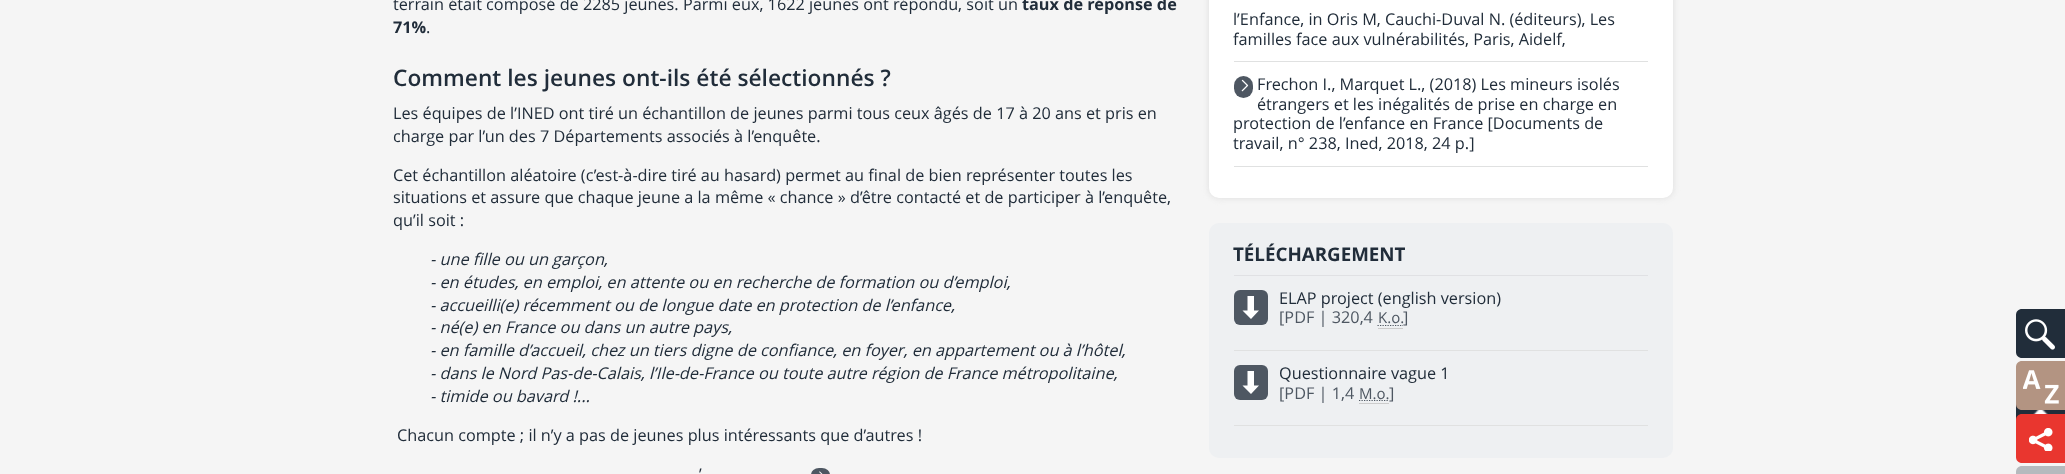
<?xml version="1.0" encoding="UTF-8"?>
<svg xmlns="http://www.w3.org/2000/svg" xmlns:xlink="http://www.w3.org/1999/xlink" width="2065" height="474">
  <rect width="100%" height="100%" fill="#f5f5f5" />
  <rect x="811" y="468" width="19" height="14" rx="8" fill="#4e5762" />
  <image x="819" y="471" width="4" height="3" xlink:href="image1.png" />
  <rect x="1209" y="-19" width="464" height="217" rx="10" fill="#dddddd" filter="blur(3px)" />
  <rect x="1209" y="-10" width="464" height="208" rx="10" fill="#ffffff" />
  <rect x="1234" y="61" width="414" height="1" fill="#e0e1e1" />
  <rect x="1234" y="166" width="414" height="1" fill="#e0e1e1" />
  <rect x="1234" y="76" width="19" height="22" rx="9.5" fill="#4e5762" />
  <image x="1241" y="79" width="8" height="13" xlink:href="image2.png" />
  <rect x="1209" y="223" width="464" height="235" rx="10" fill="#eef0f2" />
  <rect x="1234" y="275" width="414" height="1" fill="#e0e1e4" />
  <rect x="1234" y="350" width="414" height="1" fill="#e0e1e1" />
  <rect x="1234" y="290" width="34" height="35" rx="6" fill="#4e5762" />
  <path d="M 1247.5 296 h 6.5 v 14.5 h -6.5 z m 0.5 14.5 h -5.5 l 8.5 8.5 l 8 -8.5 z" fill="#ffffff" />
  <rect x="1378" y="328" width="25" height="1" fill="#cccccc" />
  <path d="M 1377.5 325.5 h 25.5" fill="none" stroke="#4e5762" stroke-width="1.2" stroke-dasharray="1.25 1.25" />
  <rect x="1234" y="425" width="414" height="1" fill="#e0e1e1" />
  <rect x="1234" y="365" width="34" height="35" rx="6" fill="#4e5762" />
  <path d="M 1247.5 371 h 6.5 v 14.5 h -6.5 z m 0.5 14.5 h -5.5 l 8.5 8.5 l 8 -8.5 z" fill="#ffffff" />
  <rect x="1359" y="403" width="30" height="1" fill="#cccccc" />
  <path d="M 1359 400.5 h 29.5" fill="none" stroke="#4e5762" stroke-width="1.2" stroke-dasharray="1.25 1.25" />
  <path d="M 2022 309 h 43 v 49 h -43 c -3.5 0 -6 -2.5 -6 -6 v -37 c 0 -3.5 2.5 -6 6 -6 z" fill="#212d3a" />
  <image x="2025" y="319" width="30" height="31" xlink:href="image3.png" />
  <rect x="2016" y="404" width="49" height="16" fill="#212d3a" />
  <path d="M 2022 361 h 43 v 49 h -43 c -3.5 0 -6 -2.5 -6 -6 v -37 c 0 -3.5 2.5 -6 6 -6 z" fill="#b39482" />
  <image x="2023" y="370" width="36" height="34" xlink:href="image4.png" />
  <path d="M 2022 414 h 43 v 49 h -43 c -3.5 0 -6 -2.5 -6 -6 v -37 c 0 -3.5 2.5 -6 6 -6 z" fill="#e9362f" />
  <image x="2029" y="428" width="24" height="23" xlink:href="image5.png" />
  <path d="M 2022 466 h 43 v 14 h -43 c -3.5 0 -6 -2.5 -6 -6 v -2 c 0 -3.5 2.5 -6 6 -6 z" fill="#b6babe" />
  <image x="2033" y="410" width="15" height="4" xlink:href="image6.png" />
  <text x="393" y="10" style="font-family: Open Sans; font-size: 16.25px; fill: #212d3a">terrain était composé de 2285 jeunes. Parmi eux, 1622 jeunes ont répondu, soit un</text>
  <text x="1022" y="10" style="font-family: Open Sans; font-size: 16.25px; font-weight: bold; fill: #212d3a">taux de réponse de</text>
  <text x="393" y="33" style="font-family: Open Sans; font-size: 16.25px; font-weight: bold; fill: #212d3a">71%</text>
  <text x="426" y="33" style="font-family: Open Sans; font-size: 16.25px; fill: #212d3a">.</text>
  <text x="393" y="86" style="font-family: Open Sans; font-size: 22.75px; font-weight: 600; fill: #212d3a">Comment les jeunes ont-ils été sélectionnés ?</text>
  <text x="393" y="119" style="font-family: Open Sans; font-size: 16.25px; fill: #212d3a">Les équipes de l’INED ont tiré un échantillon de jeunes parmi tous ceux âgés de 17 à 20 ans et pris en</text>
  <text x="393" y="142" style="font-family: Open Sans; font-size: 16.25px; fill: #212d3a">charge par l’un des 7 Départements associés à l’enquête.</text>
  <text x="393" y="181" style="font-family: Open Sans; font-size: 16.25px; fill: #212d3a">Cet échantillon aléatoire (c’est-à-dire tiré au hasard) permet au final de bien représenter toutes les</text>
  <text x="393" y="203" style="font-family: Open Sans; font-size: 16.25px; fill: #212d3a">situations et assure que chaque jeune a la même « chance » d’être contacté et de participer à l’enquête,</text>
  <text x="393" y="226" style="font-family: Open Sans; font-size: 16.25px; fill: #212d3a">qu’il soit :</text>
  <text x="430" y="265" style="font-family: Open Sans; font-size: 16.25px; font-style: italic; fill: #212d3a">- une fille ou un garçon,</text>
  <text x="430" y="288" style="font-family: Open Sans; font-size: 16.25px; font-style: italic; fill: #212d3a">- en études, en emploi, en attente ou en recherche de formation ou d’emploi,</text>
  <text x="430" y="311" style="font-family: Open Sans; font-size: 16.25px; font-style: italic; fill: #212d3a">- accueilli(e) récemment ou de longue date en protection de l’enfance,</text>
  <text x="430" y="333" style="font-family: Open Sans; font-size: 16.25px; font-style: italic; fill: #212d3a">- né(e) en France ou dans un autre pays,</text>
  <text x="430" y="356" style="font-family: Open Sans; font-size: 16.25px; font-style: italic; fill: #212d3a">- en famille d’accueil, chez un tiers digne de confiance, en foyer, en appartement ou à l’hôtel,</text>
  <text x="430" y="379" style="font-family: Open Sans; font-size: 16.25px; font-style: italic; fill: #212d3a">- dans le Nord Pas-de-Calais, l’Ile-de-France ou toute autre région de France métropolitaine,</text>
  <text x="430" y="402" style="font-family: Open Sans; font-size: 16.25px; font-style: italic; fill: #212d3a">- timide ou bavard !...</text>
  <text x="397" y="441" style="font-family: Open Sans; font-size: 16.25px; fill: #212d3a">Chacun compte ; il n’y a pas de jeunes plus intéressants que d’autres !</text>
  <text x="699" y="480" style="font-family: Open Sans; font-size: 16.25px; fill: #212d3a">’</text>
  <text x="1233" y="25" style="font-family: Open Sans; font-size: 16.25px; fill: #212d3a">l’Enfance, in Oris M, Cauchi-Duval N. (éditeurs), Les</text>
  <text x="1233" y="45" style="font-family: Open Sans; font-size: 16.25px; fill: #212d3a">familles face aux vulnérabilités, Paris, Aidelf,</text>
  <text x="1257" y="90" style="font-family: Open Sans; font-size: 16.25px; fill: #212d3a">Frechon I., Marquet L., (2018) Les mineurs isolés</text>
  <text x="1257" y="110" style="font-family: Open Sans; font-size: 16.25px; fill: #212d3a">étrangers et les inégalités de prise en charge en</text>
  <text x="1233" y="129" style="font-family: Open Sans; font-size: 16.25px; fill: #212d3a">protection de l’enfance en France [Documents de</text>
  <text x="1233" y="149" style="font-family: Open Sans; font-size: 16.25px; fill: #212d3a">travail, n° 238, Ined, 2018, 24 p.]</text>
  <text x="1233" y="261" style="font-family: Open Sans; font-size: 18.75px; font-weight: bold; fill: #212d3a">TÉLÉCHARGEMENT</text>
  <text x="1279" y="304" style="font-family: Open Sans; font-size: 16.25px; fill: #212d3a">ELAP project (english version)</text>
  <text x="1279" y="323" style="font-family: Open Sans; font-size: 16.25px; fill: #4e5762">[PDF | 320,4</text>
  <text x="1378" y="323" style="font-family: Open Sans; font-size: 15px; fill: #4e5762">K.o.</text>
  <text x="1403" y="323" style="font-family: Open Sans; font-size: 16.25px; fill: #4e5762">]</text>
  <text x="1279" y="379" style="font-family: Open Sans; font-size: 16.25px; fill: #212d3a">Questionnaire vague 1</text>
  <text x="1279" y="399" style="font-family: Open Sans; font-size: 16.25px; fill: #4e5762">[PDF | 1,4</text>
  <text x="1359" y="399" style="font-family: Open Sans; font-size: 15px; fill: #4e5762">M.o.</text>
  <text x="1389" y="399" style="font-family: Open Sans; font-size: 16.25px; fill: #4e5762">]</text>
</svg>
